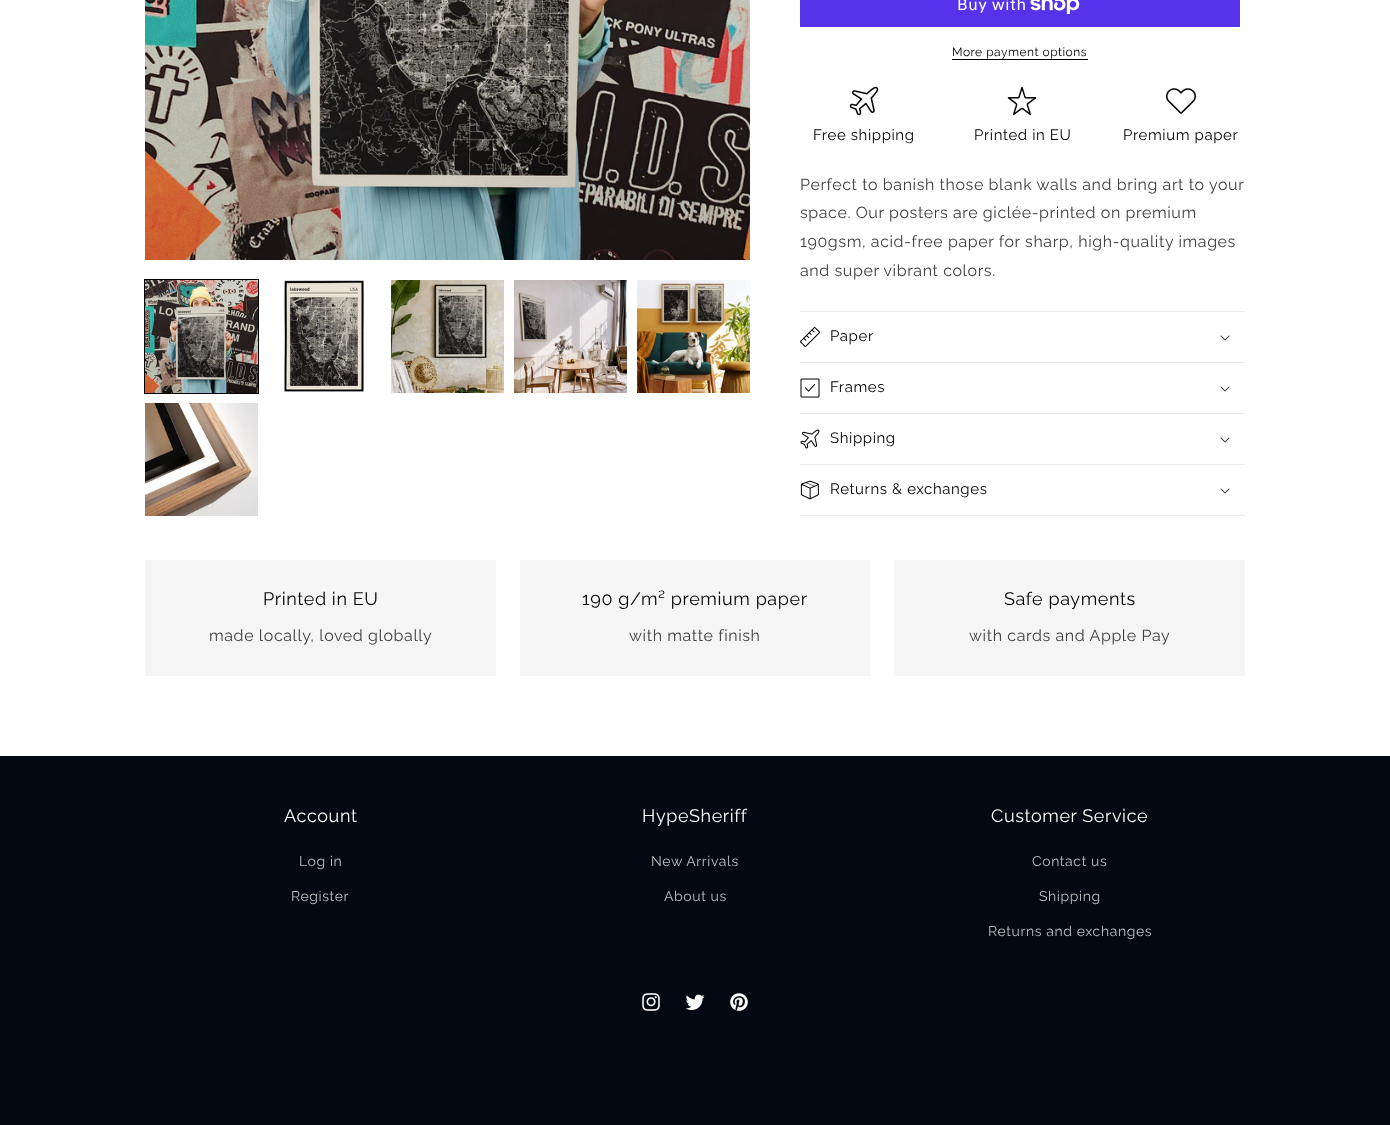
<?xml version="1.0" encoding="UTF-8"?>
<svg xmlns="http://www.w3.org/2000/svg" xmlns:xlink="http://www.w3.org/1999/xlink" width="1390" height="1125">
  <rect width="100%" height="100%" fill="#ffffff" />
  <image x="145" y="0" width="605" height="260" xlink:href="image1.png" />
  <rect x="144.5" y="279.5" width="114" height="114" fill="none" stroke="#000000" />
  <image x="145" y="280" width="113" height="113" xlink:href="image2.png" />
  <image x="284" y="280" width="80" height="112" xlink:href="image3.png" />
  <image x="391" y="280" width="113" height="113" xlink:href="image4.png" />
  <image x="514" y="280" width="113" height="113" xlink:href="image5.png" />
  <image x="637" y="280" width="113" height="113" xlink:href="image6.png" />
  <image x="145" y="403" width="113" height="113" xlink:href="image7.png" />
  <rect x="800" width="440" height="27" fill="#5433eb" />
  <image x="1030" y="0" width="50" height="14" xlink:href="image8.png" />
  <rect x="952" y="59" width="136" height="1" fill="#000000" />
  <image x="849" y="86" width="30" height="30" xlink:href="image9.png" />
  <image x="1007" y="86" width="30" height="30" xlink:href="image10.png" />
  <image x="1166" y="88" width="30" height="26" xlink:href="image11.png" />
  <rect x="800" y="311" width="445" height="1" fill="#ebebeb" />
  <rect x="800" y="362" width="445" height="1" fill="#ebebeb" />
  <image x="800" y="327" width="20" height="20" xlink:href="image12.png" />
  <image x="1220" y="335" width="10" height="6" xlink:href="image13.png" />
  <rect x="800" y="413" width="445" height="1" fill="#ebebeb" />
  <image x="800" y="378" width="20" height="20" xlink:href="image14.png" />
  <image x="1220" y="386" width="10" height="6" xlink:href="image13.png" />
  <rect x="800" y="464" width="445" height="1" fill="#ebebeb" />
  <image x="800" y="429" width="20" height="20" xlink:href="image15.png" />
  <image x="1220" y="437" width="10" height="6" xlink:href="image13.png" />
  <rect x="800" y="515" width="445" height="1" fill="#ebebeb" />
  <image x="800" y="480" width="19" height="20" xlink:href="image16.png" />
  <image x="1220" y="488" width="10" height="6" xlink:href="image13.png" />
  <rect x="145" y="560" width="351" height="116" fill="#f5f5f5" />
  <rect x="520" y="560" width="350" height="116" fill="#f5f5f5" />
  <rect x="894" y="560" width="351" height="116" fill="#f5f5f5" />
  <rect y="756" width="1390" height="369" fill="#020912" />
  <image x="642" y="993" width="18" height="18" xlink:href="image17.png" />
  <image x="685" y="994" width="20" height="16" xlink:href="image18.png" />
  <image x="730" y="993" width="18" height="18" xlink:href="image19.png" />
  <text x="957" y="10" style="font-family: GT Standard; font-size: 16px; letter-spacing: 0.6px; fill: #ffffff">Buy with</text>
  <text x="952" y="56" style="font-family: Raleway; font-size: 12px; letter-spacing: 0.5px; fill: #000000">More payment options</text>
  <text x="813" y="140" style="font-family: Raleway; font-size: 15px; letter-spacing: 0.6px; fill: #000000">Free shipping</text>
  <text x="974" y="140" style="font-family: Raleway; font-size: 15px; letter-spacing: 0.6px; fill: #000000">Printed in EU</text>
  <text x="1123" y="140" style="font-family: Raleway; font-size: 15px; letter-spacing: 0.6px; fill: #000000">Premium paper</text>
  <text x="800" y="190" style="font-family: Raleway; font-size: 16px; letter-spacing: 0.6px; fill: #404040">Perfect to banish those blank walls and bring art to your</text>
  <text x="800" y="218" style="font-family: Raleway; font-size: 16px; letter-spacing: 0.6px; fill: #404040">space. Our posters are giclée-printed on premium</text>
  <text x="800" y="247" style="font-family: Raleway; font-size: 16px; letter-spacing: 0.6px; fill: #404040">190gsm, acid-free paper for sharp, high-quality images</text>
  <text x="800" y="276" style="font-family: Raleway; font-size: 16px; letter-spacing: 0.6px; fill: #404040">and super vibrant colors.</text>
  <text x="830" y="341" style="font-family: Raleway; font-size: 15px; letter-spacing: 0.6px; fill: #000000">Paper</text>
  <text x="830" y="392" style="font-family: Raleway; font-size: 15px; letter-spacing: 0.6px; fill: #000000">Frames</text>
  <text x="830" y="443" style="font-family: Raleway; font-size: 15px; letter-spacing: 0.6px; fill: #000000">Shipping</text>
  <text x="830" y="494" style="font-family: Raleway; font-size: 15px; letter-spacing: 0.6px; fill: #000000">Returns &amp; exchanges</text>
  <text x="263" y="605" style="font-family: Raleway; font-size: 18px; letter-spacing: 0.6px; fill: #000000">Printed in EU</text>
  <text x="209" y="641" style="font-family: Raleway; font-size: 16px; letter-spacing: 0.6px; fill: #404040">made locally, loved globally</text>
  <text x="582" y="605" style="font-family: Raleway; font-size: 18px; letter-spacing: 0.6px; fill: #000000">190 g/m² premium paper</text>
  <text x="629" y="641" style="font-family: Raleway; font-size: 16px; letter-spacing: 0.6px; fill: #404040">with matte finish</text>
  <text x="1004" y="605" style="font-family: Raleway; font-size: 18px; letter-spacing: 0.6px; fill: #000000">Safe payments</text>
  <text x="969" y="641" style="font-family: Raleway; font-size: 16px; letter-spacing: 0.6px; fill: #404040">with cards and Apple Pay</text>
  <text x="284" y="822" style="font-family: Raleway; font-size: 18px; letter-spacing: 0.6px; fill: #ffffff">Account</text>
  <text x="299" y="866" style="font-family: Raleway; font-size: 14px; letter-spacing: 0.6px; fill: #bebfc2">Log in</text>
  <text x="291" y="901" style="font-family: Raleway; font-size: 14px; letter-spacing: 0.6px; fill: #bebfc2">Register</text>
  <text x="642" y="822" style="font-family: Raleway; font-size: 18px; letter-spacing: 0.6px; fill: #ffffff">HypeSheriff</text>
  <text x="651" y="866" style="font-family: Raleway; font-size: 14px; letter-spacing: 0.6px; fill: #bebfc2">New Arrivals</text>
  <text x="664" y="901" style="font-family: Raleway; font-size: 14px; letter-spacing: 0.6px; fill: #bebfc2">About us</text>
  <text x="991" y="822" style="font-family: Raleway; font-size: 18px; letter-spacing: 0.6px; fill: #ffffff">Customer Service</text>
  <text x="1032" y="866" style="font-family: Raleway; font-size: 14px; letter-spacing: 0.6px; fill: #bebfc2">Contact us</text>
  <text x="1039" y="901" style="font-family: Raleway; font-size: 14px; letter-spacing: 0.6px; fill: #bebfc2">Shipping</text>
  <text x="988" y="936" style="font-family: Raleway; font-size: 14px; letter-spacing: 0.6px; fill: #bebfc2">Returns and exchanges</text>
</svg>
